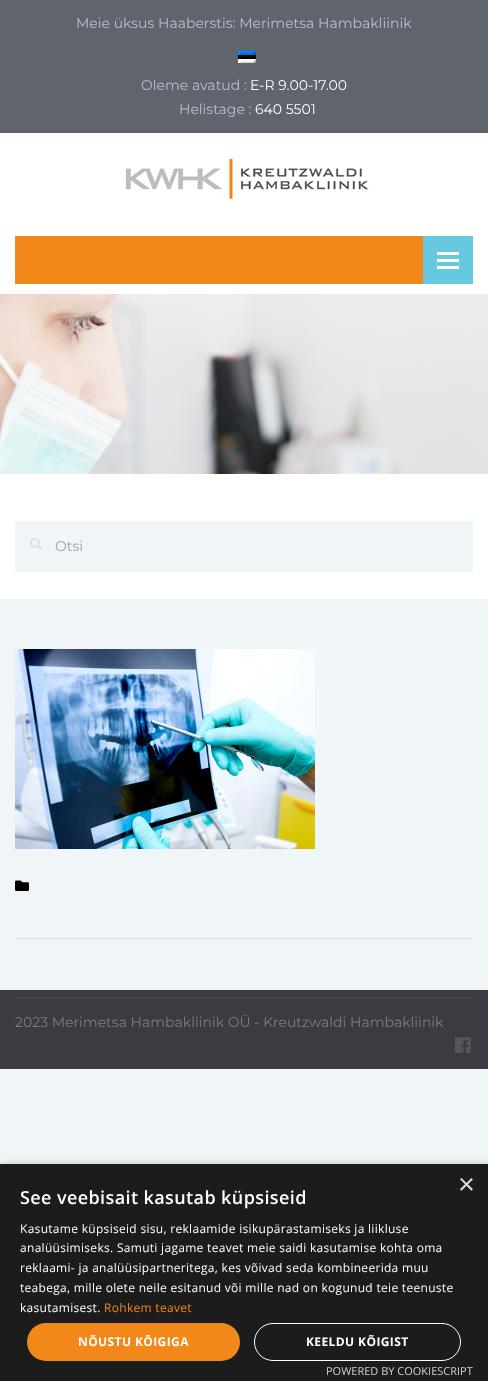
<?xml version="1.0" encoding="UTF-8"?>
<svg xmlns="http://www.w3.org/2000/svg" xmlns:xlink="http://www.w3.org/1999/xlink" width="488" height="1381">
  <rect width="100%" height="100%" fill="#f0f5f7" />
  <rect width="488" height="133" fill="#60646d" />
  <image x="238" y="51" width="18" height="12" xlink:href="image1.png" />
  <rect y="133" width="488" height="161" fill="#ffffff" />
  <image x="125" y="158" width="244" height="41" xlink:href="image2.png" />
  <rect x="15" y="236" width="408" height="48" fill="#f28819" />
  <rect x="423" y="236" width="50" height="48" fill="#67c9e0" />
  <rect x="437" y="252" width="22" height="3" fill="#ffffff" />
  <rect x="437" y="259" width="22" height="3" fill="#ffffff" />
  <rect x="437" y="266" width="22" height="3" fill="#ffffff" />
  <image x="0" y="294" width="488" height="180" xlink:href="image3.png" />
  <rect y="474" width="488" height="125" fill="#ffffff" />
  <rect x="15" y="521" width="458" height="51" fill="#f0f5f7" />
  <image x="30" y="538" width="12" height="12" xlink:href="image4.png" />
  <rect x="15" y="938" width="458" height="1" fill="#dcdee4" />
  <image x="15" y="649" width="300" height="200" xlink:href="image5.png" />
  <image x="15" y="880" width="14" height="11" xlink:href="image6.png" />
  <rect y="990" width="488" height="79" fill="#3a3c41" />
  <rect x="15" y="997" width="458" height="1" fill="#4a4c52" />
  <image x="455" y="1037" width="16" height="16" xlink:href="image7.png" />
  <rect x="1" y="1166" width="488" height="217" fill="#000000" fill-opacity="0.35" filter="blur(4px)" />
  <rect y="1164" width="488" height="217" fill="#1c1c1c" />
  <rect x="27" y="1323" width="213" height="38" rx="19" fill="#f28819" />
  <rect x="254.5" y="1323.5" width="206" height="37" rx="18.5" fill="none" stroke="#ffffff" />
  <text x="76" y="28" style="font-family: Montserrat; font-size: 14px; fill: #bbbfc9">Meie üksus Haaberstis: Merimetsa Hambakliinik</text>
  <text x="141" y="90" style="font-family: Montserrat; font-size: 14px; fill: #bbbfc9">Oleme avatud :</text>
  <text x="250" y="90" style="font-family: Montserrat; font-size: 14px; fill: #fefefe">E-R 9.00-17.00</text>
  <text x="179" y="114" style="font-family: Montserrat; font-size: 14px; fill: #bbbfc9">Helistage :</text>
  <text x="255" y="114" style="font-family: Montserrat; font-size: 14px; fill: #fefefe">640 5501</text>
  <text x="55" y="551" style="font-family: Montserrat; font-size: 14px; fill: #9ba0aa">Otsi</text>
  <text x="15" y="1027" style="font-family: Montserrat; font-size: 14px; fill: #7a7d86">2023 Merimetsa Hambakliinik OÜ - Kreutzwaldi Hambakliinik</text>
  <text x="458" y="1194" style="font-family: Liberation Sans; font-size: 29px; fill: #dddddd">×</text>
  <text x="20" y="1204" style="font-family: Open Sans; font-size: 18px; font-weight: 600; letter-spacing: 0.4px; fill: #fefefe">See veebisait kasutab küpsiseid</text>
  <text x="20" y="1233" style="font-family: Open Sans; font-size: 12px; letter-spacing: 0.3px; fill: #fefefe">Kasutame küpsiseid sisu, reklaamide isikupärastamiseks ja liikluse</text>
  <text x="20" y="1252" style="font-family: Open Sans; font-size: 12px; letter-spacing: 0.3px; fill: #fefefe">analüüsimiseks. Samuti jagame teavet meie saidi kasutamise kohta oma</text>
  <text x="20" y="1272" style="font-family: Open Sans; font-size: 12px; letter-spacing: 0.3px; fill: #fefefe">reklaami- ja analüüsipartneritega, kes võivad seda kombineerida muu</text>
  <text x="20" y="1292" style="font-family: Open Sans; font-size: 12px; letter-spacing: 0.3px; fill: #fefefe">teabega, mille olete neile esitanud või mille nad on kogunud teie teenuste</text>
  <text x="20" y="1312" style="font-family: Open Sans; font-size: 12px; letter-spacing: 0.3px; fill: #fefefe">kasutamisest.</text>
  <text x="104" y="1312" style="font-family: Open Sans; font-size: 12px; letter-spacing: 0.3px; fill: #f28819">Rohkem teavet</text>
  <text x="78" y="1346" style="font-family: Open Sans; font-size: 12px; font-weight: bold; letter-spacing: 0.4px; fill: #fefefe">NÕUSTU KÕIGIGA</text>
  <text x="306" y="1346" style="font-family: Open Sans; font-size: 12px; font-weight: bold; letter-spacing: 0.4px; fill: #fefefe">KEELDU KÕIGIST</text>
  <text x="326" y="1375" style="font-family: Open Sans; font-size: 11px; fill: #d2d2d2">POWERED BY COOKIESCRIPT</text>
</svg>
